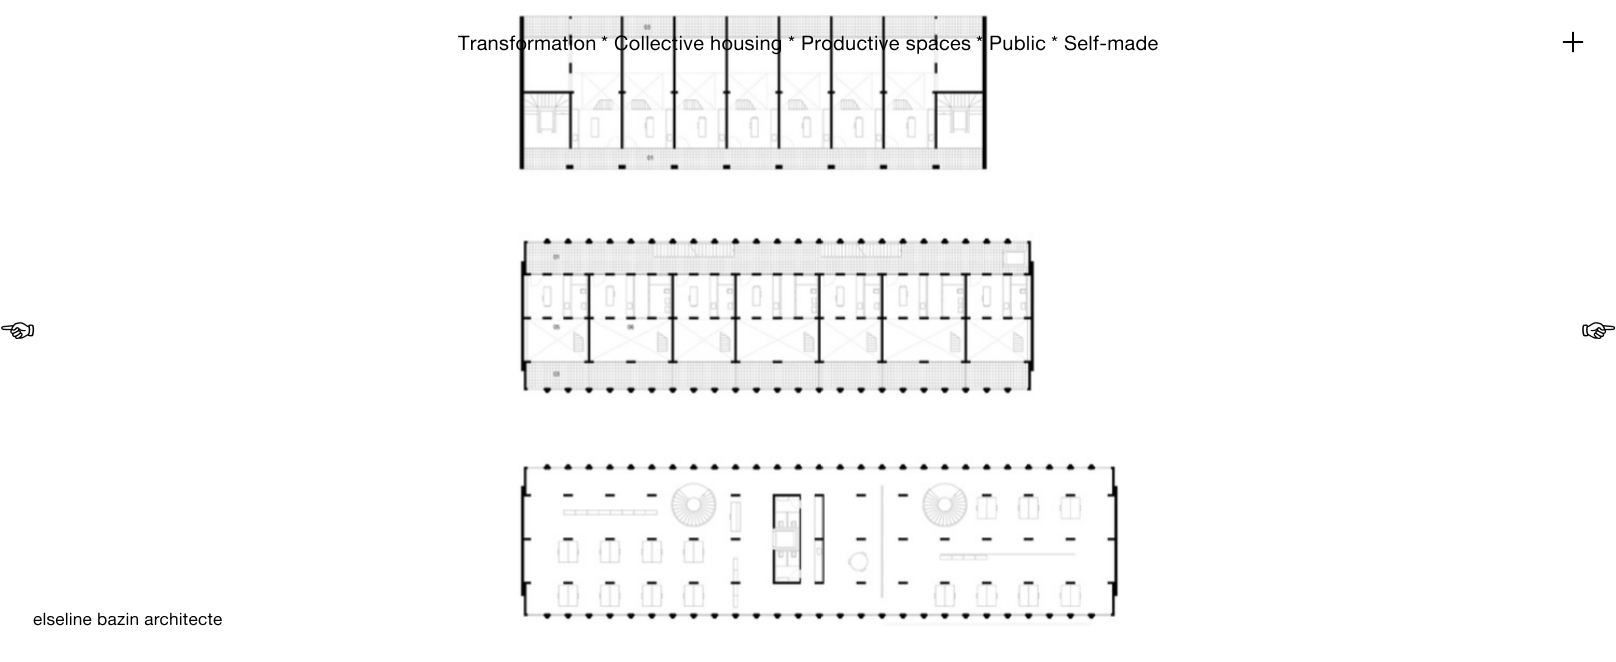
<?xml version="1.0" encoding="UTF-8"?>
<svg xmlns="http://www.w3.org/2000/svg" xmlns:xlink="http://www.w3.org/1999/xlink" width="1616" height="662">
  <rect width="100%" height="100%" fill="#ffffff" />
  <image x="518" y="15" width="601" height="612" xlink:href="image1.png" />
  <image x="1" y="322" width="34" height="17" xlink:href="image2.png" />
  <image x="1582" y="322" width="34" height="17" xlink:href="image3.png" />
  <image x="1562" y="31" width="22" height="22" xlink:href="image4.png" />
  <text x="458" y="50" style="font-family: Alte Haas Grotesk; font-size: 20px; letter-spacing: 0.25px; fill: #000000">Transformation</text>
  <text x="601" y="50" style="font-family: Alte Haas Grotesk; font-size: 20px; letter-spacing: 0.25px; fill: #000000">* Collective housing</text>
  <text x="788" y="50" style="font-family: Alte Haas Grotesk; font-size: 20px; letter-spacing: 0.25px; fill: #000000">* Productive spaces</text>
  <text x="976" y="50" style="font-family: Alte Haas Grotesk; font-size: 20px; letter-spacing: 0.25px; fill: #000000">* Public</text>
  <text x="1051" y="50" style="font-family: Alte Haas Grotesk; font-size: 20px; letter-spacing: 0.25px; fill: #000000">* Self-made</text>
  <text x="33" y="625" style="font-family: Alte Haas Grotesk; font-size: 17.25px; letter-spacing: 0.2px; fill: #000000">elseline bazin architecte</text>
</svg>
